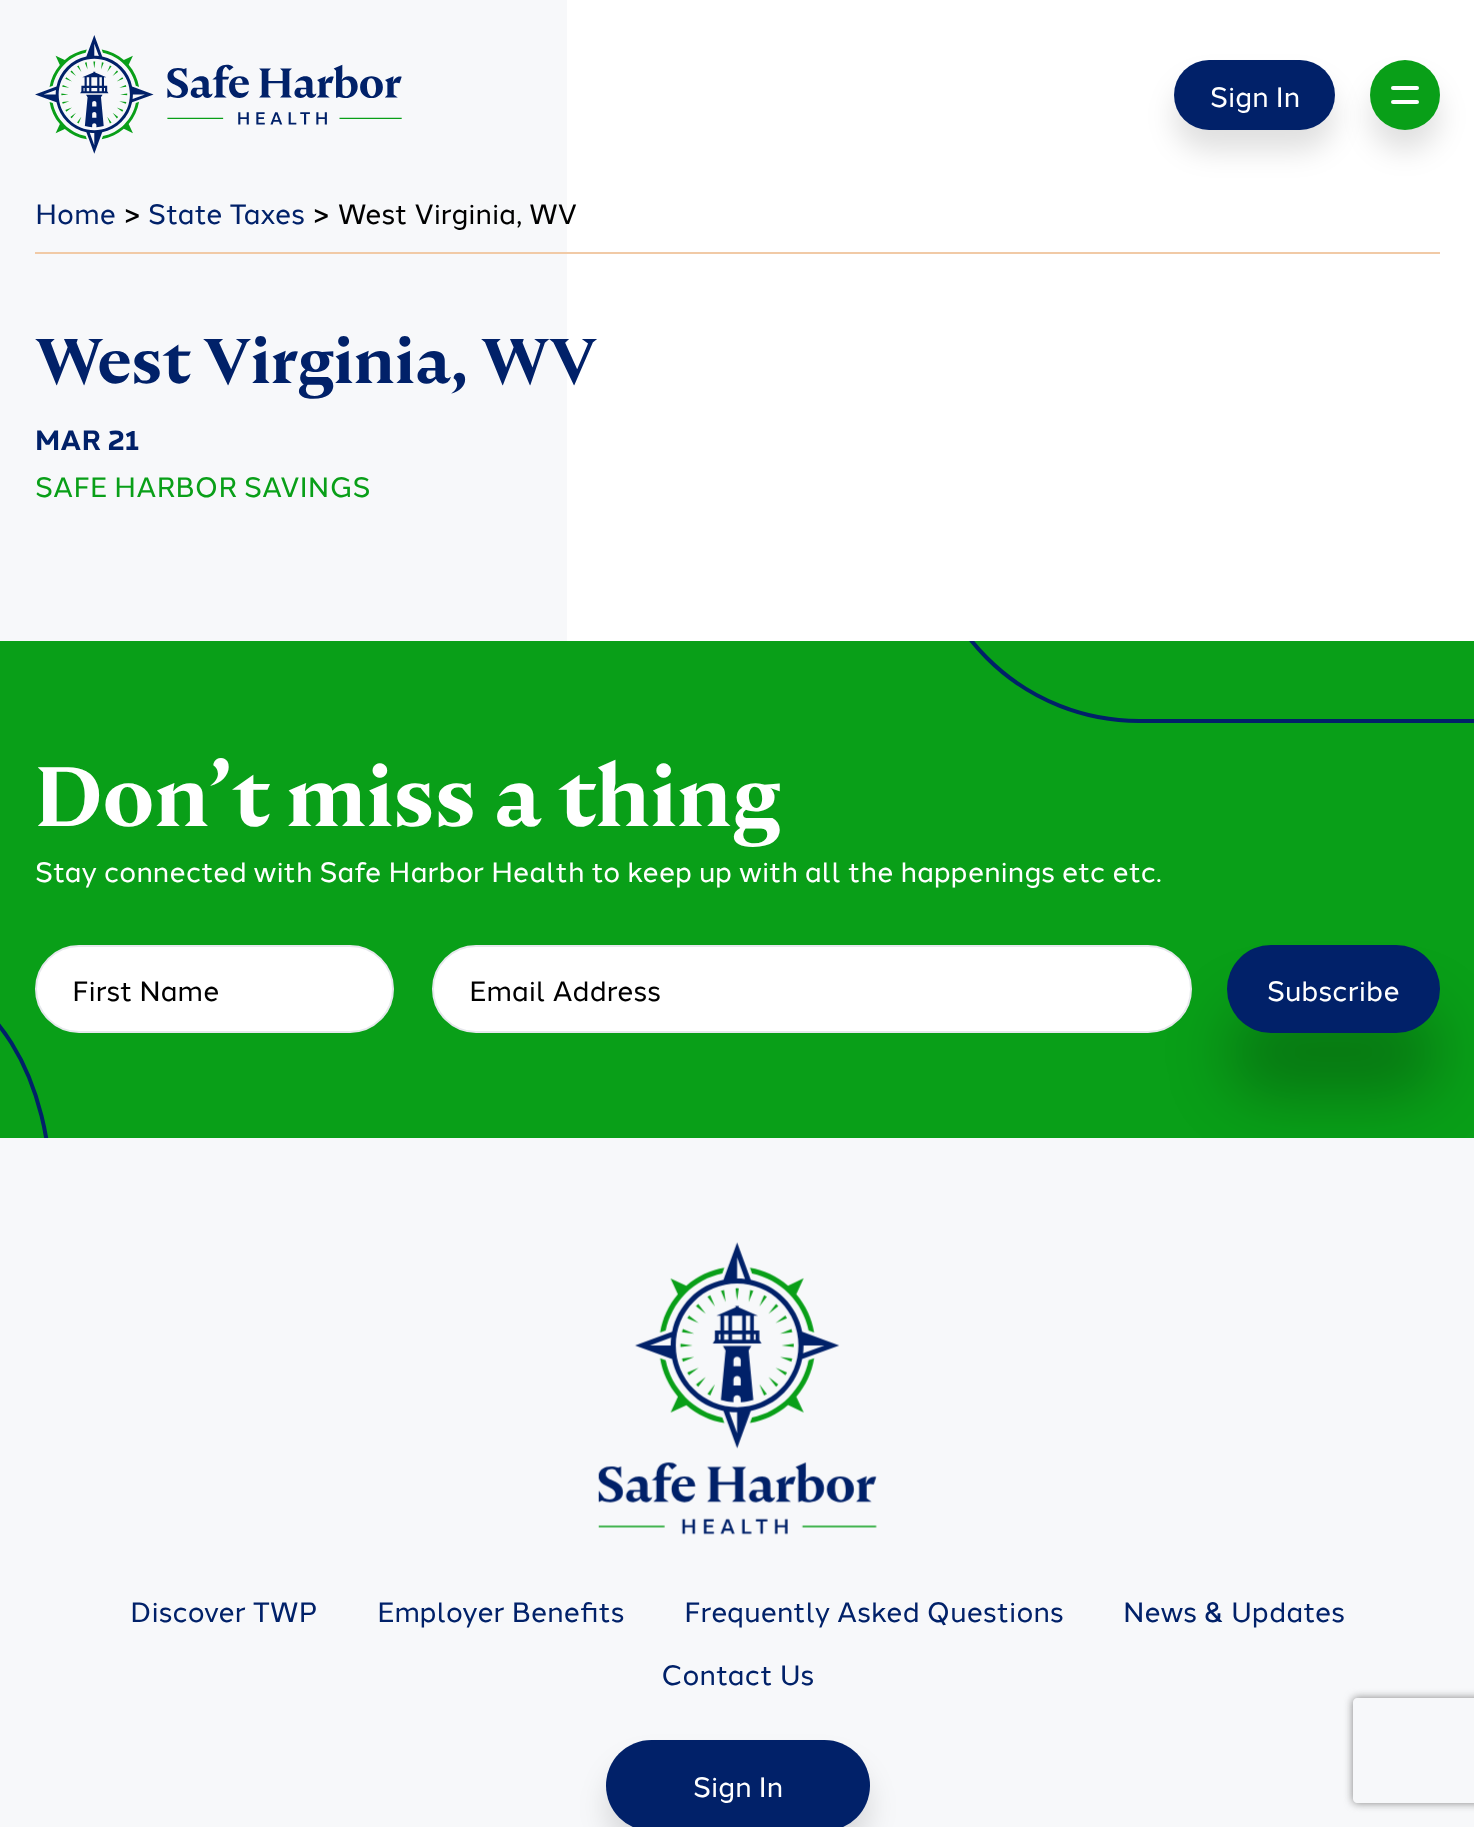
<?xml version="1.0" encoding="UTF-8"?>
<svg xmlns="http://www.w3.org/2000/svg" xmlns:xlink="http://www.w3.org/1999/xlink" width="1474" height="1827">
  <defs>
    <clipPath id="clip1"><rect y="641" width="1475" height="497" /></clipPath>
    <clipPath id="clip2"><rect x="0" y="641" width="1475" height="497" /></clipPath>
    <clipPath id="clip3"><path d="M 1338 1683 h 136 v 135 h -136 z m 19 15 h 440 c 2 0 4 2 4 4 v 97 c 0 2 -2 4 -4 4 h -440 c -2 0 -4 -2 -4 -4 v -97 c 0 -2 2 -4 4 -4 z" clip-rule="evenodd" /></clipPath>
  </defs>
  <rect width="100%" height="100%" fill="#f7f8fa" />
  <image x="35" y="35" width="367" height="119" xlink:href="image1.png" />
  <rect x="567" width="907" height="641" fill="#ffffff" />
  <rect x="35" y="252" width="1405" height="2" fill="#f1caa6" />
  <rect y="641" width="1474" height="497" fill="#099f18" />
  <g clip-path="url(#clip1)">
    <rect x="924" y="-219" width="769" height="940" rx="215" fill="none" stroke="#012169" stroke-width="4" />
  </g>
  <rect x="1174" y="81" width="161" height="70" rx="35" fill="#000000" fill-opacity="0.12" filter="blur(14px)" />
  <rect x="1174" y="60" width="161" height="70" rx="35" fill="#012169" />
  <rect x="1370" y="81" width="70" height="70" rx="35" fill="#000000" fill-opacity="0.12" filter="blur(14px)" />
  <circle cx="1405" cy="95" r="35" fill="#099f18" />
  <rect x="1391" y="86" width="28" height="4" rx="2" fill="#ffffff" />
  <rect x="1391" y="100" width="28" height="4" rx="2" fill="#ffffff" />
  <g clip-path="url(#clip1)">
    <rect x="-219" y="980" width="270" height="702" rx="215" fill="none" stroke="#012169" stroke-width="4" />
  </g>
  <rect x="36" y="946" width="357" height="86" rx="43" fill="#ffffff" stroke="#e6e8ec" stroke-width="2" />
  <g clip-path="url(#clip2)">
    <rect x="1227" y="1008" width="213" height="88" rx="44" fill="#000000" fill-opacity="0.25" filter="blur(31.5px)" />
  </g>
  <rect x="433" y="946" width="758" height="86" rx="43" fill="#ffffff" stroke="#e6e8ec" stroke-width="2" />
  <rect x="1227" y="945" width="213" height="88" rx="44" fill="#012169" />
  <image x="598" y="1242" width="279" height="293" xlink:href="image2.png" />
  <rect x="606" y="1761" width="264" height="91" rx="45.5" fill="#000000" fill-opacity="0.12" filter="blur(14px)" />
  <rect x="606" y="1740" width="264" height="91" rx="45.5" fill="#012169" />
  <g clip-path="url(#clip3)">
    <rect x="1353" y="1698" width="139" height="105" rx="4" fill="#808080" filter="blur(4.5px)" />
  </g>
  <text x="1210" y="107" style="font-family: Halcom; font-size: 28px; fill: #ffffff">Sign In</text>
  <text x="35" y="224" style="font-family: Halcom; font-size: 28px; fill: #012169">Home</text>
  <text x="125" y="224" style="font-family: Halcom; font-size: 28px; fill: #000000">&gt;</text>
  <text x="148" y="224" style="font-family: Halcom; font-size: 28px; fill: #012169">State Taxes</text>
  <text x="314" y="224" style="font-family: Halcom; font-size: 28px; fill: #000000">&gt;</text>
  <text x="338" y="224" style="font-family: Halcom; font-size: 28px; fill: #000000">West Virginia, WV</text>
  <text x="35" y="383" style="font-family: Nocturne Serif; font-size: 63px; font-weight: 600; fill: #012169">West Virginia, WV</text>
  <text x="35" y="450" style="font-family: Halcom; font-size: 28px; font-weight: bold; fill: #012169">MAR 21</text>
  <text x="35" y="497" style="font-family: Halcom; font-size: 28px; fill: #099f18">SAFE HARBOR SAVINGS</text>
  <text x="35" y="826" style="font-family: Nocturne Serif; font-size: 84px; font-weight: 600; fill: #ffffff">Don’t miss a thing</text>
  <text x="35" y="882" style="font-family: Halcom; font-size: 28px; fill: #ffffff">Stay connected with Safe Harbor Health to keep up with all the happenings etc etc.</text>
  <text x="72" y="1001" style="font-family: Halcom; font-size: 28px; fill: #000000">First Name</text>
  <text x="469" y="1001" style="font-family: Halcom; font-size: 28px; fill: #000000">Email Address</text>
  <text x="1267" y="1001" style="font-family: Halcom; font-size: 28px; fill: #ffffff">Subscribe</text>
  <text x="130" y="1622" style="font-family: Halcom; font-size: 28px; fill: #012169">Discover TWP</text>
  <text x="377" y="1622" style="font-family: Halcom; font-size: 28px; fill: #012169">Employer Benefits</text>
  <text x="684" y="1622" style="font-family: Halcom; font-size: 28px; fill: #012169">Frequently Asked Questions</text>
  <text x="1123" y="1622" style="font-family: Halcom; font-size: 28px; fill: #012169">News &amp; Updates</text>
  <text x="661" y="1685" style="font-family: Halcom; font-size: 28px; fill: #012169">Contact Us</text>
  <text x="693" y="1797" style="font-family: Halcom; font-size: 28px; fill: #ffffff">Sign In</text>
</svg>
